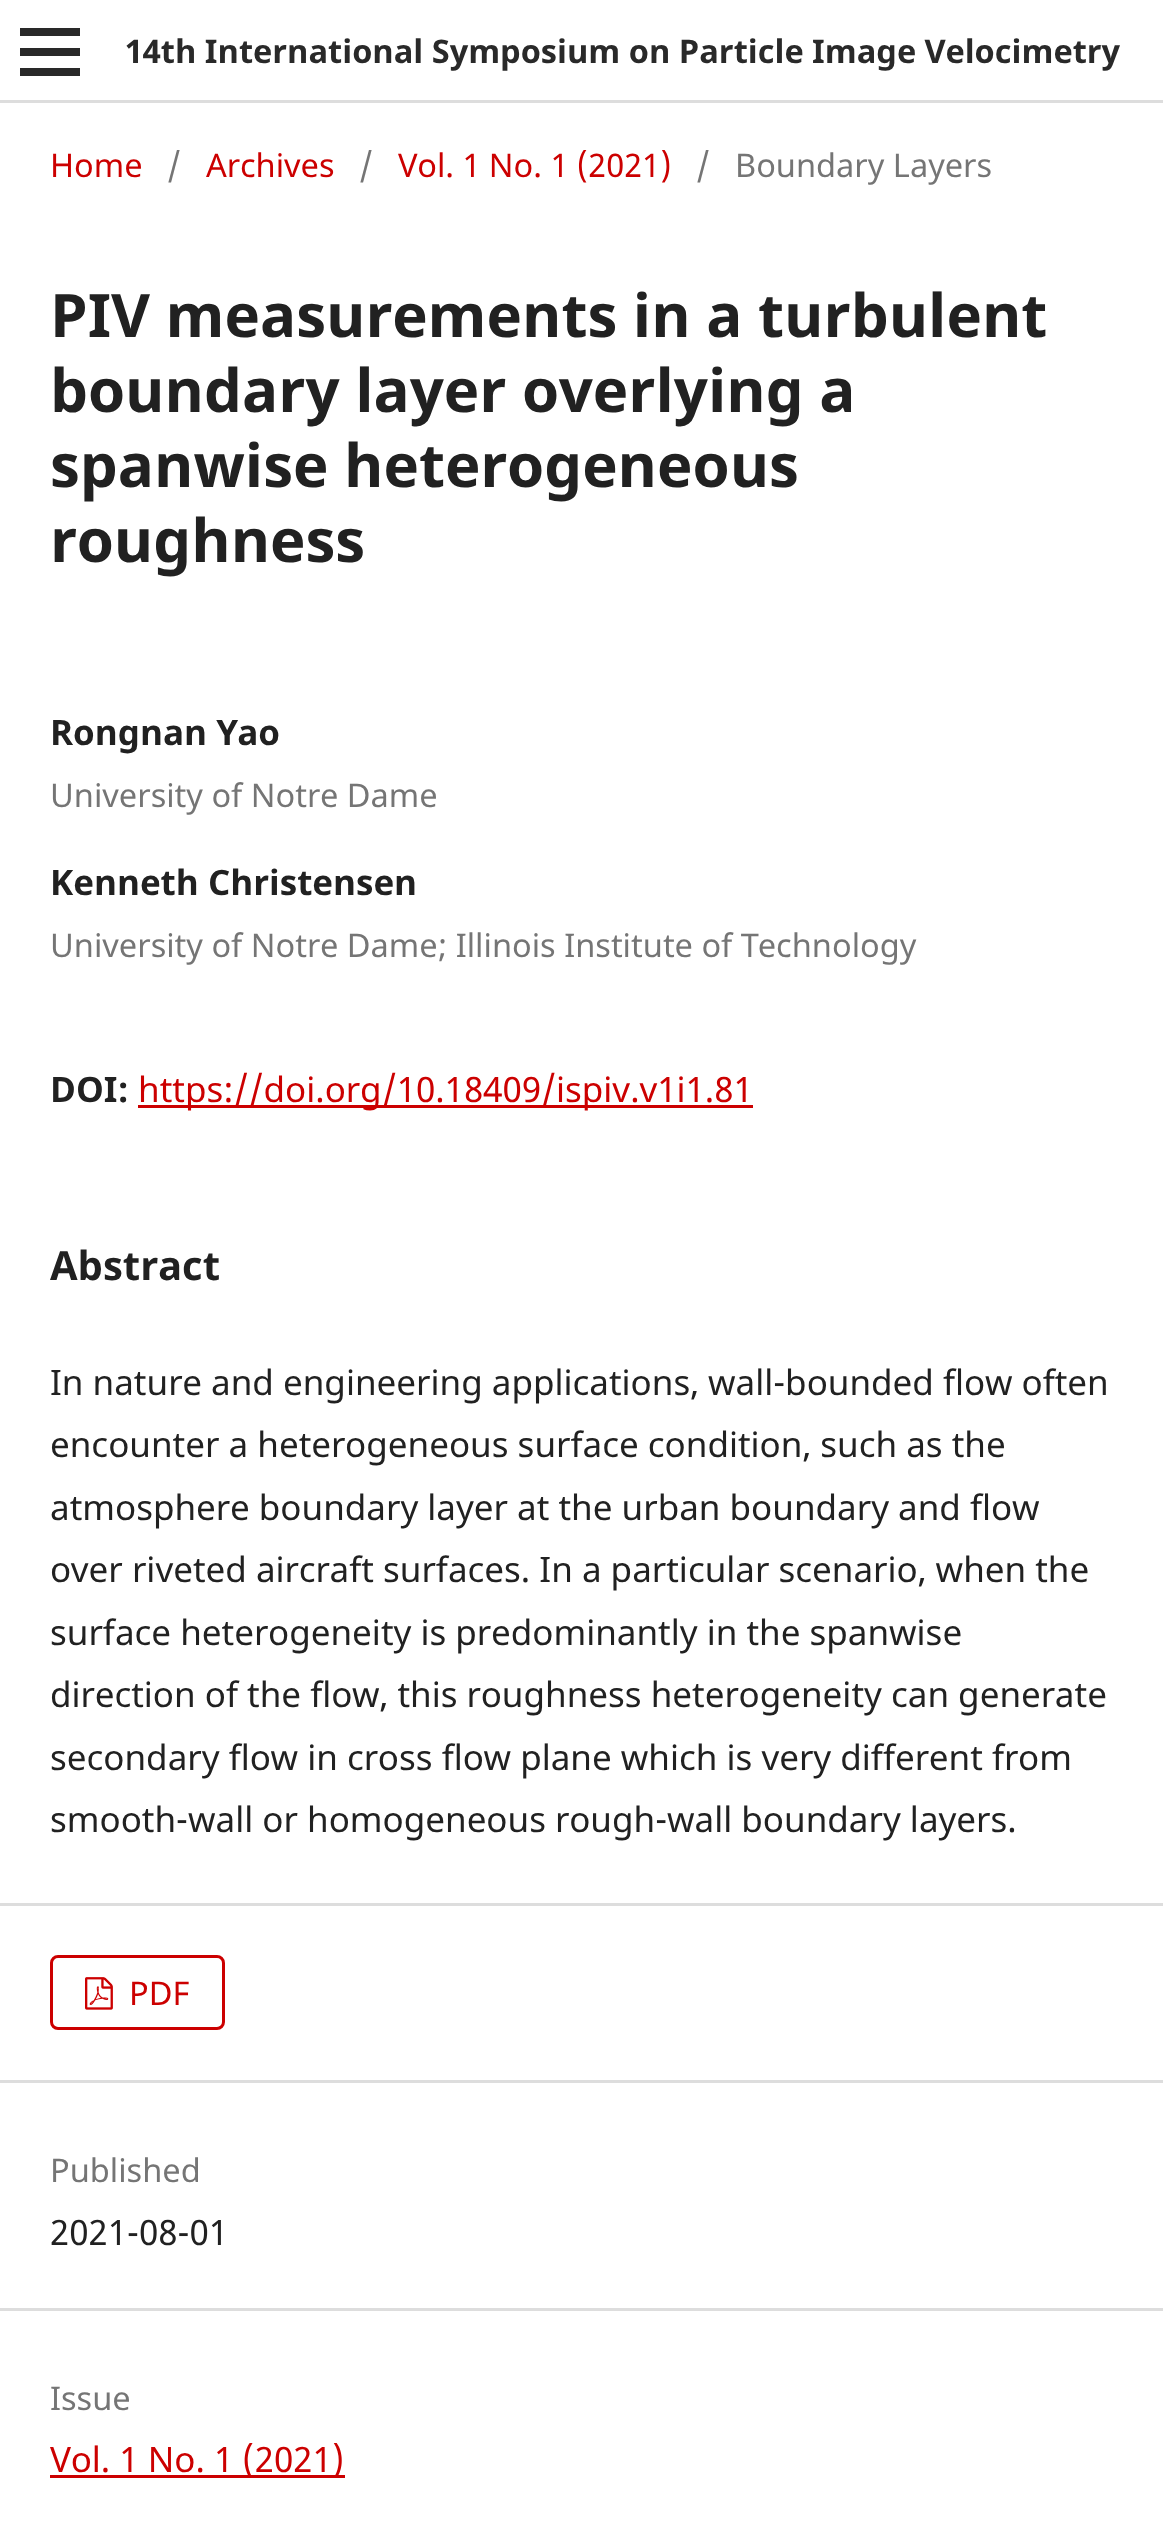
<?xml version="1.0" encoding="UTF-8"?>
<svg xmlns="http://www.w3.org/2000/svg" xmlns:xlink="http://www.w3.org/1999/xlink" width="1163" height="2529">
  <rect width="100%" height="100%" fill="#ffffff" />
  <rect y="100" width="1163" height="3" fill="#dddddd" />
  <rect x="20" y="68" width="60" height="8" fill="#292929" />
  <rect x="20" y="28" width="60" height="8" fill="#292929" />
  <rect x="20" y="48" width="60" height="8" fill="#292929" />
  <rect x="138" y="1105" width="615" height="3" fill="#cc0000" />
  <rect y="1903" width="1163" height="3" fill="#dddddd" />
  <rect y="2080" width="1163" height="3" fill="#dddddd" />
  <rect x="51.5" y="1956.5" width="172" height="72" rx="6.5" fill="none" stroke="#cc0000" stroke-width="3" />
  <image x="85" y="1977" width="28" height="33" xlink:href="image1.png" />
  <rect y="2308" width="1163" height="3" fill="#dddddd" />
  <rect x="50" y="2475" width="295" height="3" fill="#cc0000" />
  <text x="125" y="63" style="font-family: Noto Sans; font-size: 32.55px; font-weight: bold; fill: #292929">14th International Symposium on Particle Image Velocimetry</text>
  <text x="50" y="177" style="font-family: Noto Sans; font-size: 32.55px; fill: #cc0000">Home</text>
  <text x="167" y="177" style="font-family: Noto Sans; font-size: 32.55px; fill: #757575">/</text>
  <text x="206" y="177" style="font-family: Noto Sans; font-size: 32.55px; fill: #cc0000">Archives</text>
  <text x="359" y="177" style="font-family: Noto Sans; font-size: 32.55px; fill: #757575">/</text>
  <text x="398" y="177" style="font-family: Noto Sans; font-size: 32.55px; fill: #cc0000">Vol. 1 No. 1 (2021)</text>
  <text x="696" y="177" style="font-family: Noto Sans; font-size: 32.55px; fill: #757575">/</text>
  <text x="735" y="177" style="font-family: Noto Sans; font-size: 32.55px; fill: #757575">Boundary Layers</text>
  <text x="50" y="337" style="font-family: Noto Sans; font-size: 60px; font-weight: bold; fill: #212121">PIV measurements in a turbulent</text>
  <text x="50" y="412" style="font-family: Noto Sans; font-size: 60px; font-weight: bold; fill: #212121">boundary layer overlying a</text>
  <text x="50" y="487" style="font-family: Noto Sans; font-size: 60px; font-weight: bold; fill: #212121">spanwise heterogeneous</text>
  <text x="50" y="562" style="font-family: Noto Sans; font-size: 60px; font-weight: bold; fill: #212121">roughness</text>
  <text x="50" y="745" style="font-family: Noto Sans; font-size: 35px; font-weight: bold; fill: #212121">Rongnan Yao</text>
  <text x="50" y="807" style="font-family: Noto Sans; font-size: 32.55px; fill: #757575">University of Notre Dame</text>
  <text x="50" y="895" style="font-family: Noto Sans; font-size: 35px; font-weight: bold; fill: #212121">Kenneth Christensen</text>
  <text x="50" y="957" style="font-family: Noto Sans; font-size: 32.55px; fill: #757575">University of Notre Dame; Illinois Institute of Technology</text>
  <text x="50" y="1102" style="font-family: Noto Sans; font-size: 35px; font-weight: bold; fill: #212121">DOI:</text>
  <text x="138" y="1102" style="font-family: Noto Sans; font-size: 35px; fill: #cc0000">https://doi.org/10.18409/ispiv.v1i1.81</text>
  <text x="50" y="1280" style="font-family: Noto Sans; font-size: 40px; font-weight: bold; fill: #212121">Abstract</text>
  <text x="50" y="1395" style="font-family: Noto Sans; font-size: 35px; fill: #212121">In nature and engineering applications, wall-bounded flow often</text>
  <text x="50" y="1457" style="font-family: Noto Sans; font-size: 35px; fill: #212121">encounter a heterogeneous surface condition, such as the</text>
  <text x="50" y="1520" style="font-family: Noto Sans; font-size: 35px; fill: #212121">atmosphere boundary layer at the urban boundary and flow</text>
  <text x="50" y="1582" style="font-family: Noto Sans; font-size: 35px; fill: #212121">over riveted aircraft surfaces. In a particular scenario, when the</text>
  <text x="50" y="1645" style="font-family: Noto Sans; font-size: 35px; fill: #212121">surface heterogeneity is predominantly in the spanwise</text>
  <text x="50" y="1707" style="font-family: Noto Sans; font-size: 35px; fill: #212121">direction of the flow, this roughness heterogeneity can generate</text>
  <text x="50" y="1770" style="font-family: Noto Sans; font-size: 35px; fill: #212121">secondary flow in cross flow plane which is very different from</text>
  <text x="50" y="1832" style="font-family: Noto Sans; font-size: 35px; fill: #212121">smooth-wall or homogeneous rough-wall boundary layers.</text>
  <text x="129" y="2005" style="font-family: Noto Sans; font-size: 32.55px; fill: #cc0000">PDF</text>
  <text x="50" y="2182" style="font-family: Noto Sans; font-size: 32.55px; fill: #757575">Published</text>
  <text x="50" y="2245" style="font-family: Noto Sans; font-size: 35px; fill: #212121">2021-08-01</text>
  <text x="50" y="2410" style="font-family: Noto Sans; font-size: 32.55px; fill: #757575">Issue</text>
  <text x="50" y="2472" style="font-family: Noto Sans; font-size: 35px; fill: #cc0000">Vol. 1 No. 1 (2021)</text>
</svg>
